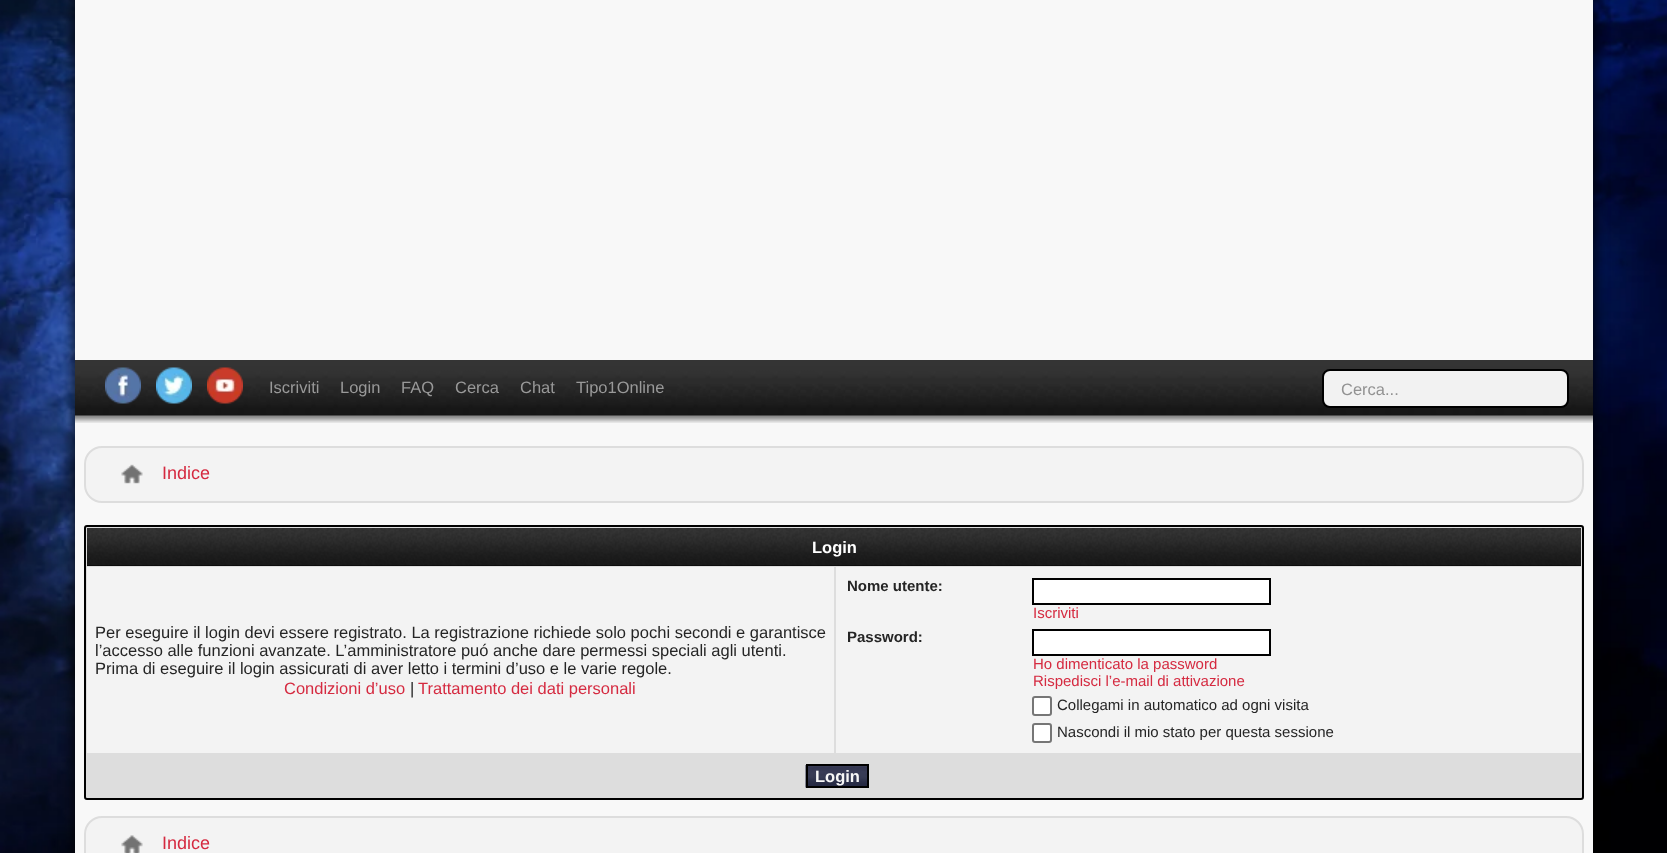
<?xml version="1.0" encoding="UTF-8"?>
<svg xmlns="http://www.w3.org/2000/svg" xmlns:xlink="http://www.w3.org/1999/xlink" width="1667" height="853">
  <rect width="100%" height="100%" fill="#ffffff" />
  <image x="0" y="0" width="1667" height="853" xlink:href="image1.png" />
  <rect x="75" y="-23" width="1518" height="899" fill="#000000" filter="blur(7.5px)" />
  <rect x="75" width="1518" height="853" fill="#f8f8f8" />
  <image x="75" y="360" width="1518" height="63" xlink:href="image2.png" />
  <image x="105" y="367" width="36" height="37" xlink:href="image3.png" />
  <image x="156" y="367" width="36" height="37" xlink:href="image4.png" />
  <image x="207" y="367" width="36" height="37" xlink:href="image5.png" />
  <rect x="1323" y="370" width="245" height="37" rx="7" fill="#f2f2f2" stroke="#000000" stroke-width="2" />
  <rect x="85" y="447" width="1498" height="55" rx="17" fill="#f3f3f3" stroke="#dddddd" stroke-width="2" />
  <image x="121" y="464" width="22" height="20" xlink:href="image6.png" />
  <rect x="85" y="526" width="1498" height="273" rx="2" fill="#dddddd" stroke="#000000" stroke-width="2" />
  <rect x="87" y="565" width="1494" height="1" fill="#000000" />
  <image x="87" y="528" width="1494" height="38" xlink:href="image7.png" />
  <rect x="87" y="567" width="747" height="186" fill="#f3f3f3" />
  <rect x="836" y="567" width="745" height="186" fill="#f3f3f3" />
  <rect x="1033" y="579" width="237" height="25" fill="#ffffff" stroke="#000000" stroke-width="2" />
  <rect x="1033" y="630" width="237" height="25" fill="#ffffff" stroke="#000000" stroke-width="2" />
  <rect x="1033" y="697" width="18" height="18" rx="2" fill="#ffffff" stroke="#767676" stroke-width="2" />
  <rect x="1033" y="724" width="18" height="18" rx="2" fill="#ffffff" stroke="#767676" stroke-width="2" />
  <image x="805" y="765" width="62" height="23" xlink:href="image8.png" />
  <rect x="807" y="765" width="61" height="22" fill="none" stroke="#000000" stroke-width="2" />
  <rect x="85" y="817" width="1498" height="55" rx="17" fill="#f3f3f3" stroke="#dddddd" stroke-width="2" />
  <image x="121" y="835" width="22" height="18" xlink:href="image9.png" />
  <text x="269" y="393" style="font-family: Liberation Sans; font-size: 16.5px; fill: #999999">Iscriviti</text>
  <text x="340" y="393" style="font-family: Liberation Sans; font-size: 16.5px; fill: #999999">Login</text>
  <text x="401" y="393" style="font-family: Liberation Sans; font-size: 16.5px; fill: #999999">FAQ</text>
  <text x="455" y="393" style="font-family: Liberation Sans; font-size: 16.5px; fill: #999999">Cerca</text>
  <text x="520" y="393" style="font-family: Liberation Sans; font-size: 16.5px; fill: #999999">Chat</text>
  <text x="576" y="393" style="font-family: Liberation Sans; font-size: 16.5px; fill: #999999">Tipo1Online</text>
  <text x="1341" y="395" style="font-family: Liberation Sans; font-size: 16.5px; fill: #929292">Cerca...</text>
  <text x="162" y="479" style="font-family: Liberation Sans; font-size: 18px; fill: #d52a40">Indice</text>
  <text x="812" y="553" style="font-family: Liberation Sans; font-size: 16.5px; font-weight: bold; fill: #ffffff">Login</text>
  <text x="95" y="638" style="font-family: Liberation Sans; font-size: 16.5px; fill: #252525">Per eseguire il login devi essere registrato. La registrazione richiede solo pochi secondi e garantisce</text>
  <text x="95" y="656" style="font-family: Liberation Sans; font-size: 16.5px; fill: #252525">l’accesso alle funzioni avanzate. L’amministratore puó anche dare permessi speciali agli utenti.</text>
  <text x="95" y="674" style="font-family: Liberation Sans; font-size: 16.5px; fill: #252525">Prima di eseguire il login assicurati di aver letto i termini d’uso e le varie regole.</text>
  <text x="284" y="694" style="font-family: Liberation Sans; font-size: 16.5px; fill: #d52a40">Condizioni d’uso</text>
  <text x="410" y="694" style="font-family: Liberation Sans; font-size: 16.5px; fill: #252525">|</text>
  <text x="418" y="694" style="font-family: Liberation Sans; font-size: 16.5px; fill: #d52a40">Trattamento dei dati personali</text>
  <text x="847" y="591" style="font-family: Liberation Sans; font-size: 15px; font-weight: bold; fill: #252525">Nome utente:</text>
  <text x="1033" y="618" style="font-family: Liberation Sans; font-size: 15px; fill: #d52a40">Iscriviti</text>
  <text x="847" y="642" style="font-family: Liberation Sans; font-size: 15px; font-weight: bold; fill: #252525">Password:</text>
  <text x="1033" y="669" style="font-family: Liberation Sans; font-size: 15px; fill: #d52a40">Ho dimenticato la password</text>
  <text x="1033" y="686" style="font-family: Liberation Sans; font-size: 15px; fill: #d52a40">Rispedisci l’e-mail di attivazione</text>
  <text x="1057" y="710" style="font-family: Liberation Sans; font-size: 15px; fill: #252525">Collegami in automatico ad ogni visita</text>
  <text x="1057" y="737" style="font-family: Liberation Sans; font-size: 15px; fill: #252525">Nascondi il mio stato per questa sessione</text>
  <text x="815" y="782" style="font-family: Liberation Sans; font-size: 16.5px; font-weight: bold; fill: #f7f7f7">Login</text>
  <text x="162" y="849" style="font-family: Liberation Sans; font-size: 18px; fill: #d52a40">Indice</text>
</svg>
